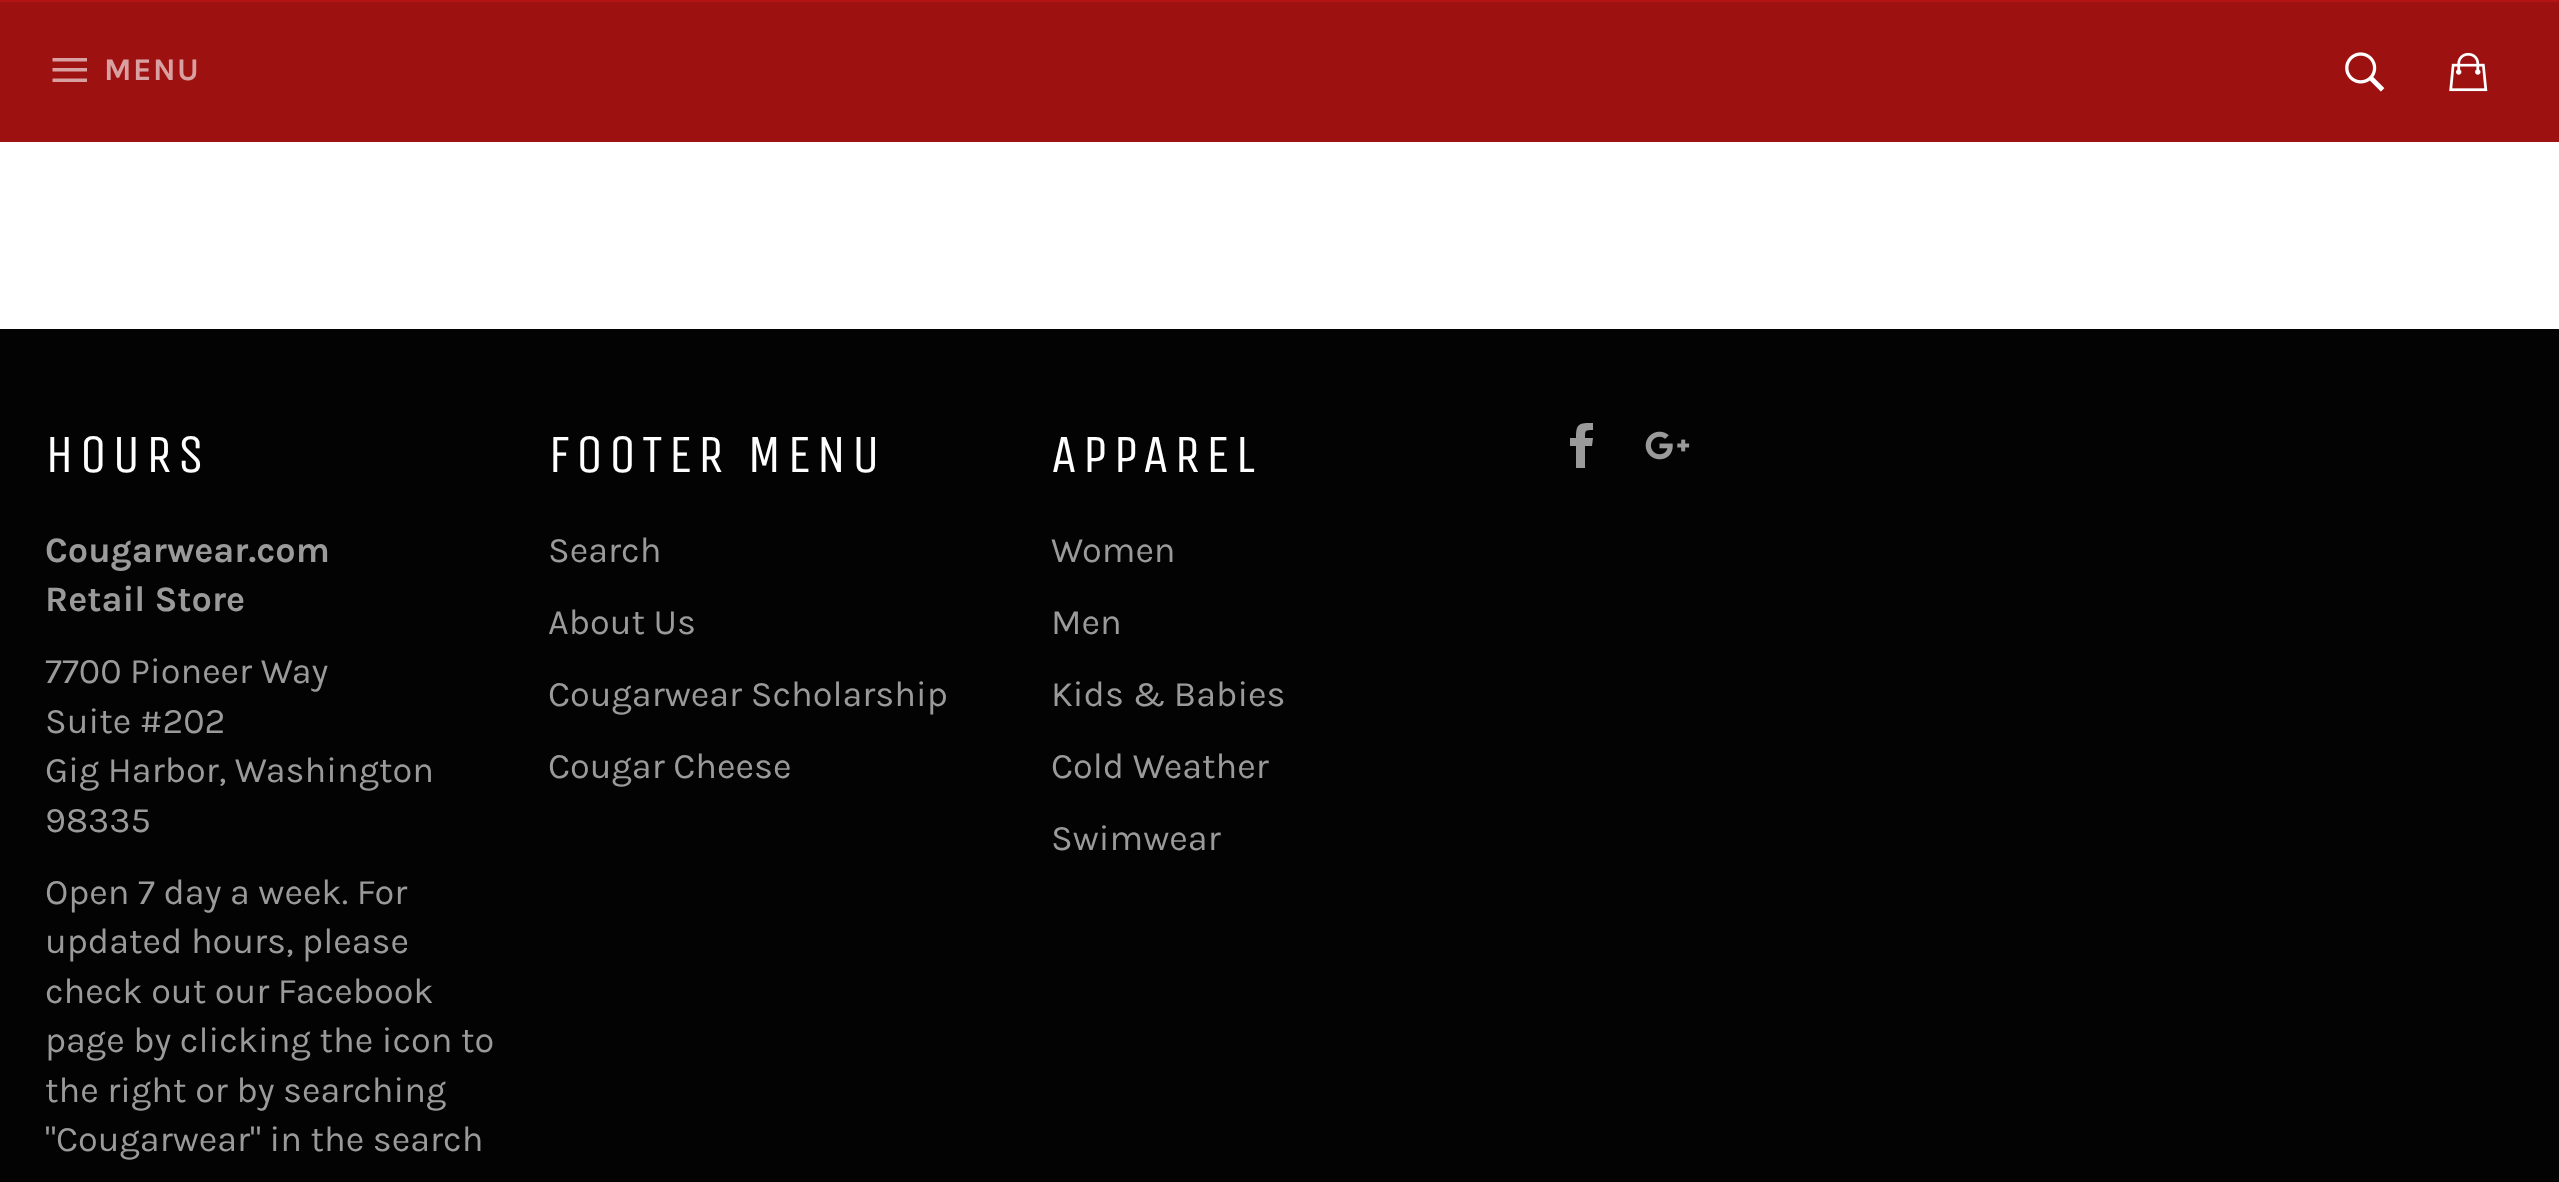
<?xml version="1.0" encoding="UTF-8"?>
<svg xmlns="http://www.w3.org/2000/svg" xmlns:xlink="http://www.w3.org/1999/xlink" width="2559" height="1182">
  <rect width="100%" height="100%" fill="#ffffff" />
  <rect y="2" width="2559" height="140" fill="#9d1111" />
  <rect width="2559" height="2" fill="#b41313" />
  <path d="M 52.5 68 h 34.5 v 3.5 h -34.5 z m 0 -10 h 34.5 v 3.5 h -34.5 z m 0 20.5 h 34.5 v 3.5 h -34.5 z" fill="#d8a0a0" />
  <image x="2345" y="52" width="40" height="40" xlink:href="image1.png" />
  <image x="2449" y="52" width="39" height="40" xlink:href="image2.png" />
  <rect y="329" width="2559" height="853" fill="#030303" />
  <path d="M 1585 438 c 0 -8 0 -8 8 -8 v -7 c -14 0 -17 0 -17 15 h -6 v 8 h 6 v 22 h 9 v -22 h 7 l 1 -8 z" fill="#9a9a9a" />
  <image x="1645" y="431" width="45" height="29" xlink:href="image3.png" />
  <text x="104" y="80" style="font-family: Karla; font-size: 31.5px; font-weight: bold; letter-spacing: 1.5px; fill: #d8a0a0">MENU</text>
  <text x="45" y="472" style="font-family: Unica One; font-size: 54px; letter-spacing: 5.4px; fill: #ffffff">HOURS</text>
  <text x="45" y="562" style="font-family: Karla; font-size: 36px; font-weight: bold; fill: #9a9a9a">Cougarwear.com</text>
  <text x="45" y="611" style="font-family: Karla; font-size: 36px; font-weight: bold; fill: #9a9a9a">Retail Store</text>
  <text x="45" y="683" style="font-family: Karla; font-size: 36px; fill: #9a9a9a">7700 Pioneer Way</text>
  <text x="45" y="733" style="font-family: Karla; font-size: 36px; fill: #9a9a9a">Suite #202</text>
  <text x="45" y="782" style="font-family: Karla; font-size: 36px; fill: #9a9a9a">Gig Harbor, Washington</text>
  <text x="45" y="832" style="font-family: Karla; font-size: 36px; fill: #9a9a9a">98335</text>
  <text x="45" y="904" style="font-family: Karla; font-size: 36px; fill: #9a9a9a">Open 7 day a week. For</text>
  <text x="45" y="953" style="font-family: Karla; font-size: 36px; fill: #9a9a9a">updated hours, please</text>
  <text x="45" y="1003" style="font-family: Karla; font-size: 36px; fill: #9a9a9a">check out our Facebook</text>
  <text x="45" y="1052" style="font-family: Karla; font-size: 36px; fill: #9a9a9a">page by clicking the icon to</text>
  <text x="45" y="1102" style="font-family: Karla; font-size: 36px; fill: #9a9a9a">the right or by searching</text>
  <text x="45" y="1151" style="font-family: Karla; font-size: 36px; fill: #9a9a9a">"Cougarwear" in the search</text>
  <text x="548" y="472" style="font-family: Unica One; font-size: 54px; letter-spacing: 5.4px; fill: #ffffff">FOOTER MENU</text>
  <text x="548" y="562" style="font-family: Karla; font-size: 36px; fill: #9a9a9a">Search</text>
  <text x="548" y="634" style="font-family: Karla; font-size: 36px; fill: #9a9a9a">About Us</text>
  <text x="548" y="706" style="font-family: Karla; font-size: 36px; fill: #9a9a9a">Cougarwear Scholarship</text>
  <text x="548" y="778" style="font-family: Karla; font-size: 36px; fill: #9a9a9a">Cougar Cheese</text>
  <text x="1051" y="472" style="font-family: Unica One; font-size: 54px; letter-spacing: 5.4px; fill: #ffffff">APPAREL</text>
  <text x="1051" y="562" style="font-family: Karla; font-size: 36px; fill: #9a9a9a">Women</text>
  <text x="1051" y="634" style="font-family: Karla; font-size: 36px; fill: #9a9a9a">Men</text>
  <text x="1051" y="706" style="font-family: Karla; font-size: 36px; fill: #9a9a9a">Kids &amp; Babies</text>
  <text x="1051" y="778" style="font-family: Karla; font-size: 36px; fill: #9a9a9a">Cold Weather</text>
  <text x="1051" y="850" style="font-family: Karla; font-size: 36px; fill: #9a9a9a">Swimwear</text>
</svg>
